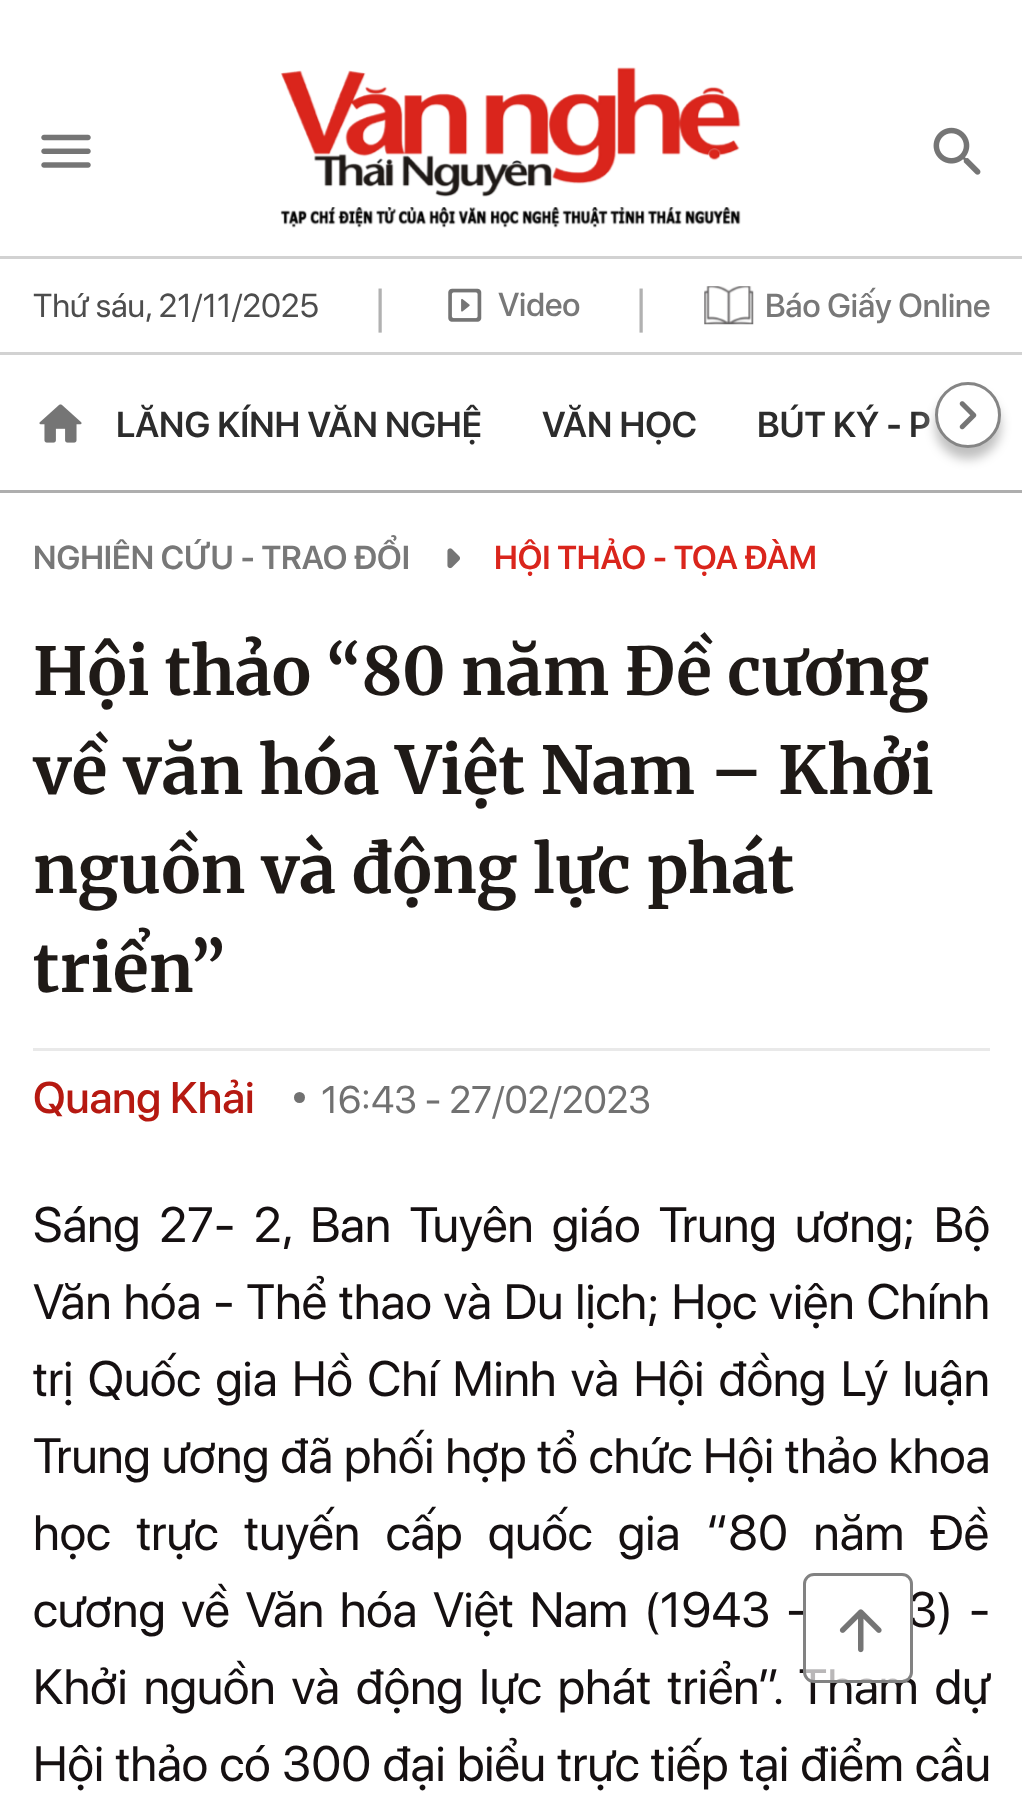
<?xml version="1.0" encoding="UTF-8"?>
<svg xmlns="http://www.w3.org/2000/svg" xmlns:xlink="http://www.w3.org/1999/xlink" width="1022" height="1819">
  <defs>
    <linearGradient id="g1" gradientUnits="userSpaceOnUse" x1="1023" y1="415" x2="913" y2="415"><stop offset="0.27" stop-color="#ffffff" /><stop offset="1" stop-color="#ffffff" stop-opacity="0" /></linearGradient>
  </defs>
  <rect width="100%" height="100%" fill="#ffffff" />
  <image x="41" y="134" width="50" height="34" xlink:href="image1.png" />
  <image x="280" y="67" width="461" height="161" xlink:href="image2.png" />
  <image x="933" y="127" width="48" height="48" xlink:href="image3.png" />
  <rect y="256" width="1022" height="3" fill="#d2d2d2" />
  <image x="448" y="288" width="34" height="34" xlink:href="image4.png" />
  <image x="704" y="286" width="50" height="39" xlink:href="image5.png" />
  <rect y="352" width="1022" height="3" fill="#d2d2d2" />
  <rect y="490" width="1022" height="3" fill="#aeaeae" />
  <image x="39" y="404" width="43" height="39" xlink:href="image6.png" />
  <image x="447" y="548" width="13" height="21" xlink:href="image8.png" />
  <rect x="33" y="1048" width="957" height="3" fill="#e9e9e9" />
  <circle cx="299.5" cy="1097.5" r="5.5" fill="#717171" />
  <text x="33" y="317" style="font-family: SF Pro Display; font-size: 33px; fill: #4d4d4d">Thứ sáu, 21/11/2025</text>
  <text x="368" y="322" style="font-family: Noto Sans; font-size: 44px; fill: #b1b1b1">|</text>
  <text x="498" y="316" style="font-family: SF Pro Display; font-size: 33px; font-weight: 500; fill: #787878">Video</text>
  <text x="629" y="322" style="font-family: Noto Sans; font-size: 44px; fill: #b1b1b1">|</text>
  <text x="765" y="317" style="font-family: SF Pro Display; font-size: 33px; font-weight: 500; fill: #787878">Báo Giấy Online</text>
  <text x="116" y="437" style="font-family: SF Pro Display; font-size: 35.75px; font-weight: 600; fill: #2c2c2c">LĂNG KÍNH VĂN NGHỆ</text>
  <text x="542" y="437" style="font-family: SF Pro Display; font-size: 35.75px; font-weight: 600; fill: #2c2c2c">VĂN HỌC</text>
  <text x="757" y="437" style="font-family: SF Pro Display; font-size: 35.75px; font-weight: 600; fill: #2c2c2c">BÚT KÝ - P</text>
  <rect x="915" y="411" width="15" height="26" fill="url(#g1)" />
  <rect x="935" y="393" width="66" height="66" rx="33" fill="#000000" fill-opacity="0.25" filter="blur(5.5px)" />
  <circle cx="968" cy="415" r="31.5" fill="#ffffff" stroke="#858585" stroke-width="3" />
  <image x="959" y="401" width="18" height="29" xlink:href="image7.png" />
  <text x="33" y="569" style="font-family: SF Pro Display; font-size: 33px; font-weight: 600; fill: #787878">NGHIÊN CỨU - TRAO ĐỔI</text>
  <text x="494" y="569" style="font-family: SF Pro Display; font-size: 33px; font-weight: 600; fill: #da251c">HỘI THẢO - TỌA ĐÀM</text>
  <text x="33" y="695" word-spacing="-0.25" style="font-family: Merriweather; font-size: 66px; font-weight: 300; fill: #1f1a17">Hội thảo “80 năm Đề cương</text>
  <text x="33" y="794" style="font-family: Merriweather; font-size: 66px; font-weight: 300; fill: #1f1a17">về văn hóa Việt Nam – Khởi</text>
  <text x="33" y="893" style="font-family: Merriweather; font-size: 66px; font-weight: 300; fill: #1f1a17">nguồn và động lực phát</text>
  <text x="33" y="992" style="font-family: Merriweather; font-size: 66px; font-weight: 300; fill: #1f1a17">triển”</text>
  <text x="33" y="1113" style="font-family: SF Pro Display; font-size: 44px; font-weight: 500; fill: #b61911">Quang Khải</text>
  <text x="321" y="1113" style="font-family: SF Pro Display; font-size: 38.5px; fill: #717171">16:43 - 27/02/2023</text>
  <text x="33" y="1242" word-spacing="8.25" style="font-family: SF Pro Display; font-size: 49.5px; fill: #151011">Sáng 27- 2, Ban Tuyên giáo Trung ương; Bộ</text>
  <text x="33" y="1319" word-spacing="1.75" style="font-family: SF Pro Display; font-size: 49.5px; fill: #151011">Văn hóa - Thể thao và Du lịch; Học viện Chính</text>
  <text x="33" y="1396" word-spacing="4.25" style="font-family: SF Pro Display; font-size: 49.5px; fill: #151011">trị Quốc gia Hồ Chí Minh và Hội đồng Lý luận</text>
  <text x="33" y="1473" word-spacing="0.75" style="font-family: SF Pro Display; font-size: 49.5px; fill: #151011">Trung ương đã phối hợp tổ chức Hội thảo khoa</text>
  <text x="33" y="1550" word-spacing="15.5" style="font-family: SF Pro Display; font-size: 49.5px; fill: #151011">học trực tuyến cấp quốc gia “80 năm Đề</text>
  <text x="33" y="1627" word-spacing="5.5" style="font-family: SF Pro Display; font-size: 49.5px; fill: #151011">cương về Văn hóa Việt Nam (1943 -</text>
  <text x="908" y="1627" word-spacing="5.5" style="font-family: SF Pro Display; font-size: 49.5px; fill: #151011">3) -</text>
  <text x="33" y="1704" word-spacing="6" style="font-family: SF Pro Display; font-size: 49.5px; fill: #151011">Khởi nguồn và động lực phát triển”. Tham dự</text>
  <text x="33" y="1781" word-spacing="1.25" style="font-family: SF Pro Display; font-size: 49.5px; fill: #151011">Hội thảo có 300 đại biểu trực tiếp tại điểm cầu</text>
  <rect x="804.5" y="1574.5" width="107" height="107" rx="9.5" fill="#ffffff" fill-opacity="0.7" stroke="#828282" stroke-width="3" />
  <image x="839" y="1609" width="43" height="44" xlink:href="image9.png" />
</svg>
